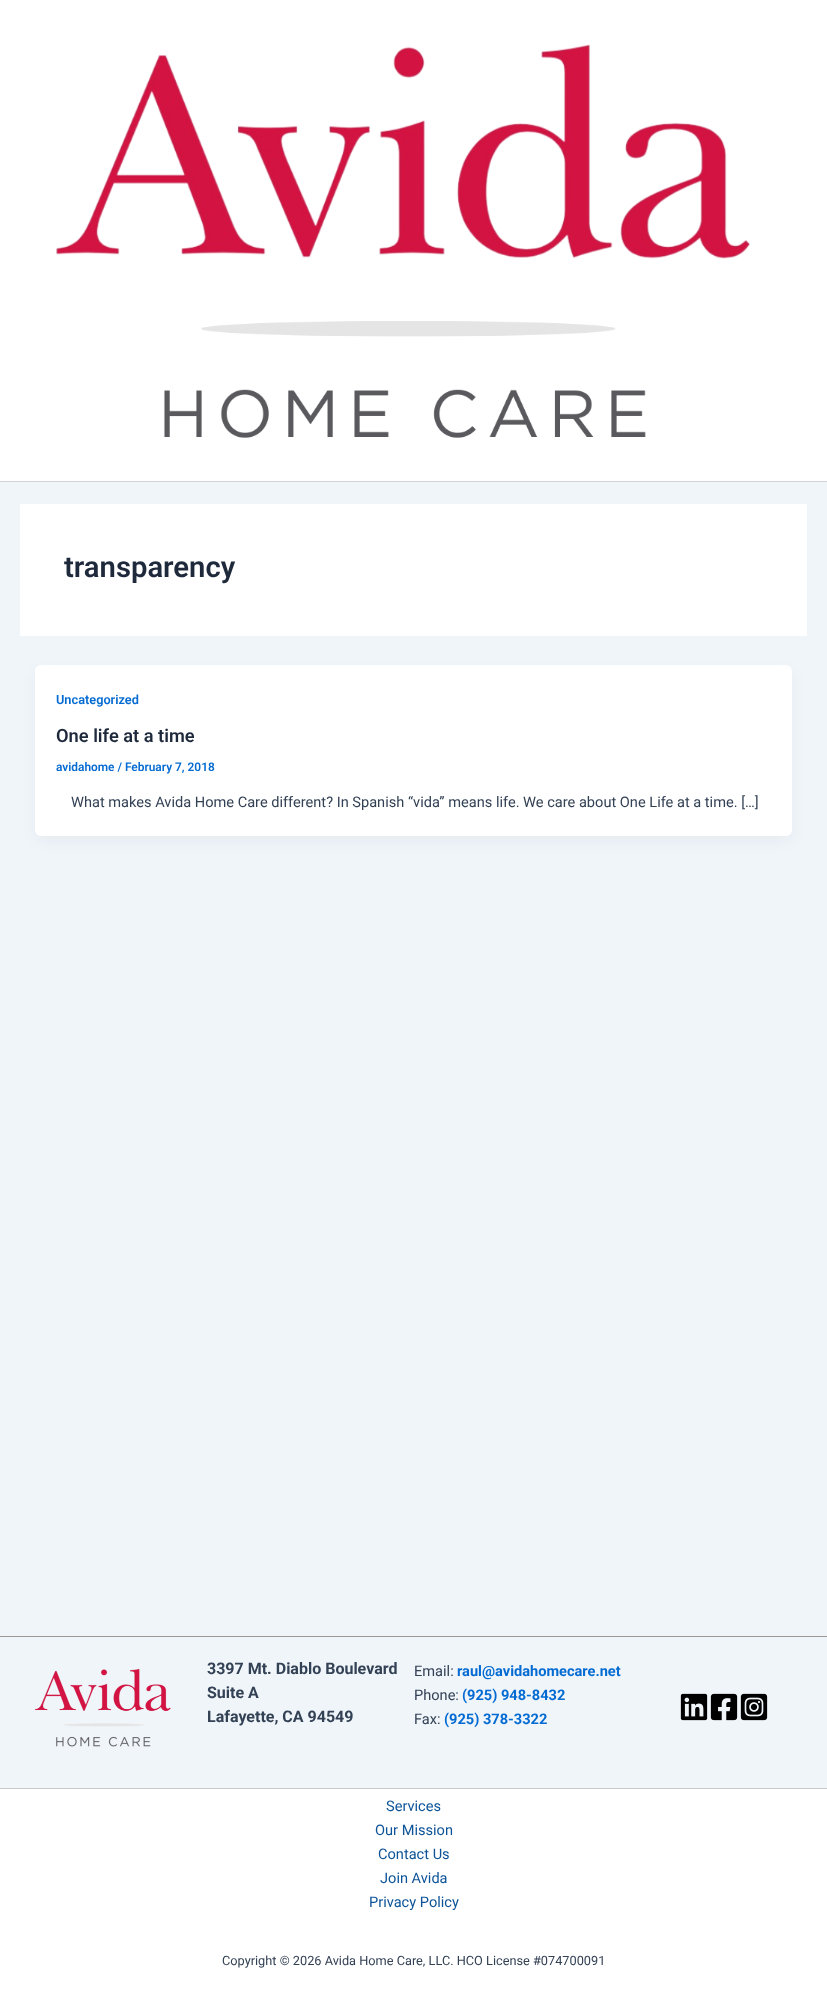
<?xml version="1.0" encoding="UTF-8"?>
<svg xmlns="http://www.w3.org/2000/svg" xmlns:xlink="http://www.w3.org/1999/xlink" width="827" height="2003">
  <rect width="100%" height="100%" fill="#f0f5fa" />
  <rect width="827" height="481" fill="#ffffff" />
  <rect y="481" width="827" height="1" fill="#d1d5db" />
  <image x="56" y="44" width="694" height="394" xlink:href="image1.png" />
  <rect x="20" y="504" width="787" height="132" fill="#ffffff" />
  <rect x="37" y="673" width="753" height="167" rx="4" fill="#101828" fill-opacity="0.05" filter="blur(7.5px)" />
  <rect x="35" y="665" width="757" height="171" rx="6" fill="#ffffff" />
  <rect y="1636" width="827" height="1" fill="#989898" />
  <image x="35" y="1668" width="136" height="79" xlink:href="image2.png" />
  <image x="680" y="1693" width="28" height="28" xlink:href="image3.png" />
  <image x="710" y="1693" width="28" height="28" xlink:href="image4.png" />
  <image x="740" y="1693" width="28" height="28" xlink:href="image5.png" />
  <rect y="1789" width="827" height="214" fill="#ffffff" />
  <rect y="1788" width="827" height="1" fill="#c9c9c9" />
  <text x="64" y="577" style="font-family: Roboto; font-size: 29.25px; font-weight: 600; fill: #1e293b">transparency</text>
  <text x="56" y="704" style="font-family: Roboto; font-size: 12.75px; font-weight: 600; fill: #046bd2">Uncategorized</text>
  <text x="56" y="742" style="font-family: Roboto; font-size: 18.25px; font-weight: 600; fill: #1e293b">One life at a time</text>
  <text x="56" y="771" style="font-family: Roboto; font-size: 11.9px; font-weight: 600; fill: #046bd2">avidahome / February 7, 2018</text>
  <text x="71" y="807" style="font-family: Roboto; font-size: 14.6px; fill: #334155">What makes Avida Home Care different? In Spanish “vida” means life. We care about One Life at a time. […]</text>
  <text x="207" y="1674" style="font-family: Roboto; font-size: 16px; font-weight: bold; fill: #334155">3397 Mt. Diablo Boulevard</text>
  <text x="207" y="1698" style="font-family: Roboto; font-size: 16px; font-weight: bold; fill: #334155">Suite A</text>
  <text x="207" y="1722" style="font-family: Roboto; font-size: 16px; font-weight: bold; fill: #334155">Lafayette, CA 94549</text>
  <text x="414" y="1676" style="font-family: Roboto; font-size: 14.6px; fill: #334155">Email:</text>
  <text x="457" y="1676" style="font-family: Roboto; font-size: 14.6px; font-weight: bold; fill: #046bd2">raul@avidahomecare.net</text>
  <text x="414" y="1700" style="font-family: Roboto; font-size: 14.6px; fill: #334155">Phone:</text>
  <text x="462" y="1700" style="font-family: Roboto; font-size: 14.6px; font-weight: bold; fill: #046bd2">(925) 948-8432</text>
  <text x="414" y="1724" style="font-family: Roboto; font-size: 14.6px; fill: #334155">Fax:</text>
  <text x="444" y="1724" style="font-family: Roboto; font-size: 14.6px; font-weight: bold; fill: #046bd2">(925) 378-3322</text>
  <text x="386" y="1811" style="font-family: Roboto; font-size: 14.6px; fill: #0d5398">Services</text>
  <text x="375" y="1835" style="font-family: Roboto; font-size: 14.6px; fill: #0d5398">Our Mission</text>
  <text x="378" y="1859" style="font-family: Roboto; font-size: 14.6px; fill: #0d5398">Contact Us</text>
  <text x="380" y="1883" style="font-family: Roboto; font-size: 14.6px; fill: #0d5398">Join Avida</text>
  <text x="369" y="1907" style="font-family: Roboto; font-size: 14.6px; fill: #0d5398">Privacy Policy</text>
  <text x="222" y="1965" style="font-family: Roboto; font-size: 12.75px; fill: #334155">Copyright © 2026 Avida Home Care, LLC. HCO License #074700091</text>
</svg>
